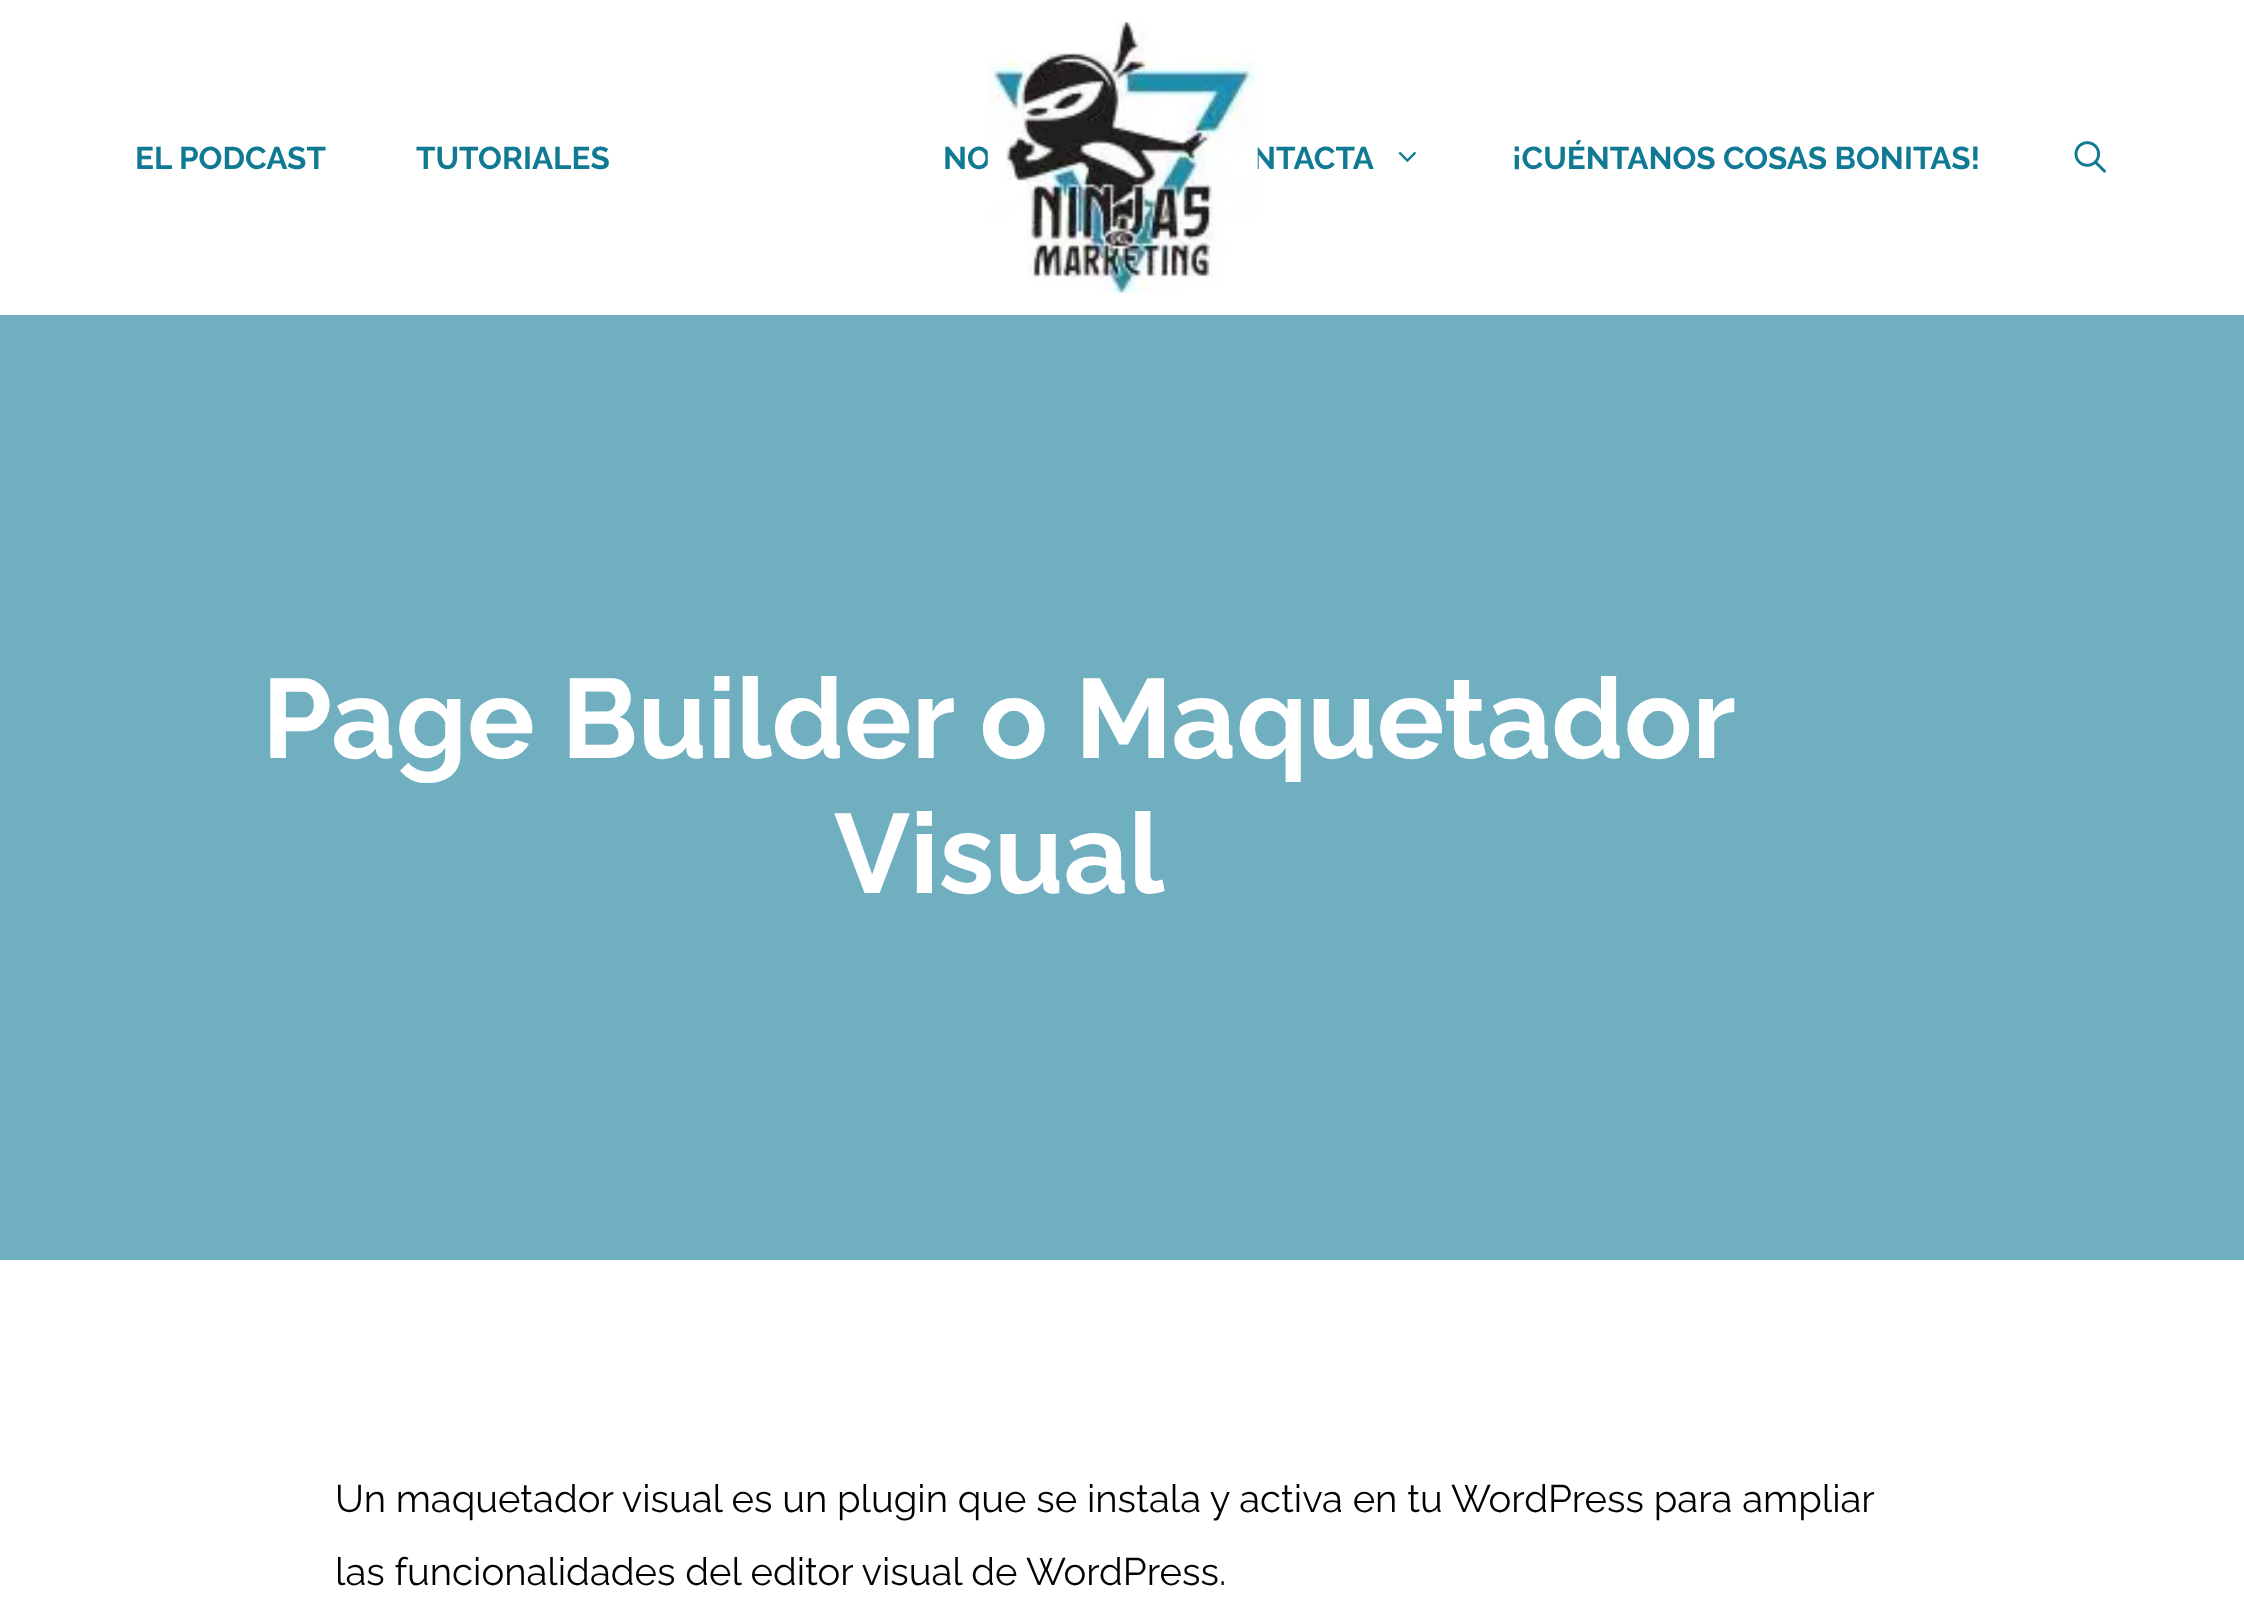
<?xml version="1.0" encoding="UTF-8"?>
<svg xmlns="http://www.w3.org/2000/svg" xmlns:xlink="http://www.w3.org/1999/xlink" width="2244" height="1613">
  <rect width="100%" height="100%" fill="#ffffff" />
  <image x="1398" y="151" width="19" height="11" xlink:href="image2.png" />
  <image x="2074" y="141" width="32" height="32" xlink:href="image3.png" />
  <rect y="315" width="2244" height="945" fill="#70afbf" />
  <text x="135" y="169" style="font-family: Raleway; font-size: 31.5px; font-weight: bold; fill: #107993">EL PODCAST</text>
  <text x="416" y="169" style="font-family: Raleway; font-size: 31.5px; font-weight: bold; fill: #107993">TUTORIALES</text>
  <text x="943" y="169" style="font-family: Raleway; font-size: 31.5px; font-weight: bold; fill: #107993">NO</text>
  <text x="1252" y="169" style="font-family: Raleway; font-size: 31.5px; font-weight: bold; fill: #107993">NTACTA</text>
  <image x="987" y="22" width="271" height="271" xlink:href="image1.png" />
  <text x="1512" y="169" style="font-family: Raleway; font-size: 31.5px; font-weight: bold; fill: #107993">¡CUÉNTANOS COSAS BONITAS!</text>
  <text x="262" y="758" style="font-family: Raleway; font-size: 112.5px; font-weight: bold; fill: #ffffff">Page Builder o Maquetador</text>
  <text x="834" y="893" style="font-family: Raleway; font-size: 112.5px; font-weight: bold; fill: #ffffff">Visual</text>
  <text x="335" y="1512" style="font-family: Raleway; font-size: 38.25px; fill: #020202">Un maquetador visual es un plugin que se instala y activa en tu WordPress para ampliar</text>
  <text x="335" y="1585" style="font-family: Raleway; font-size: 38.25px; fill: #020202">las funcionalidades del editor visual de WordPress.</text>
</svg>
